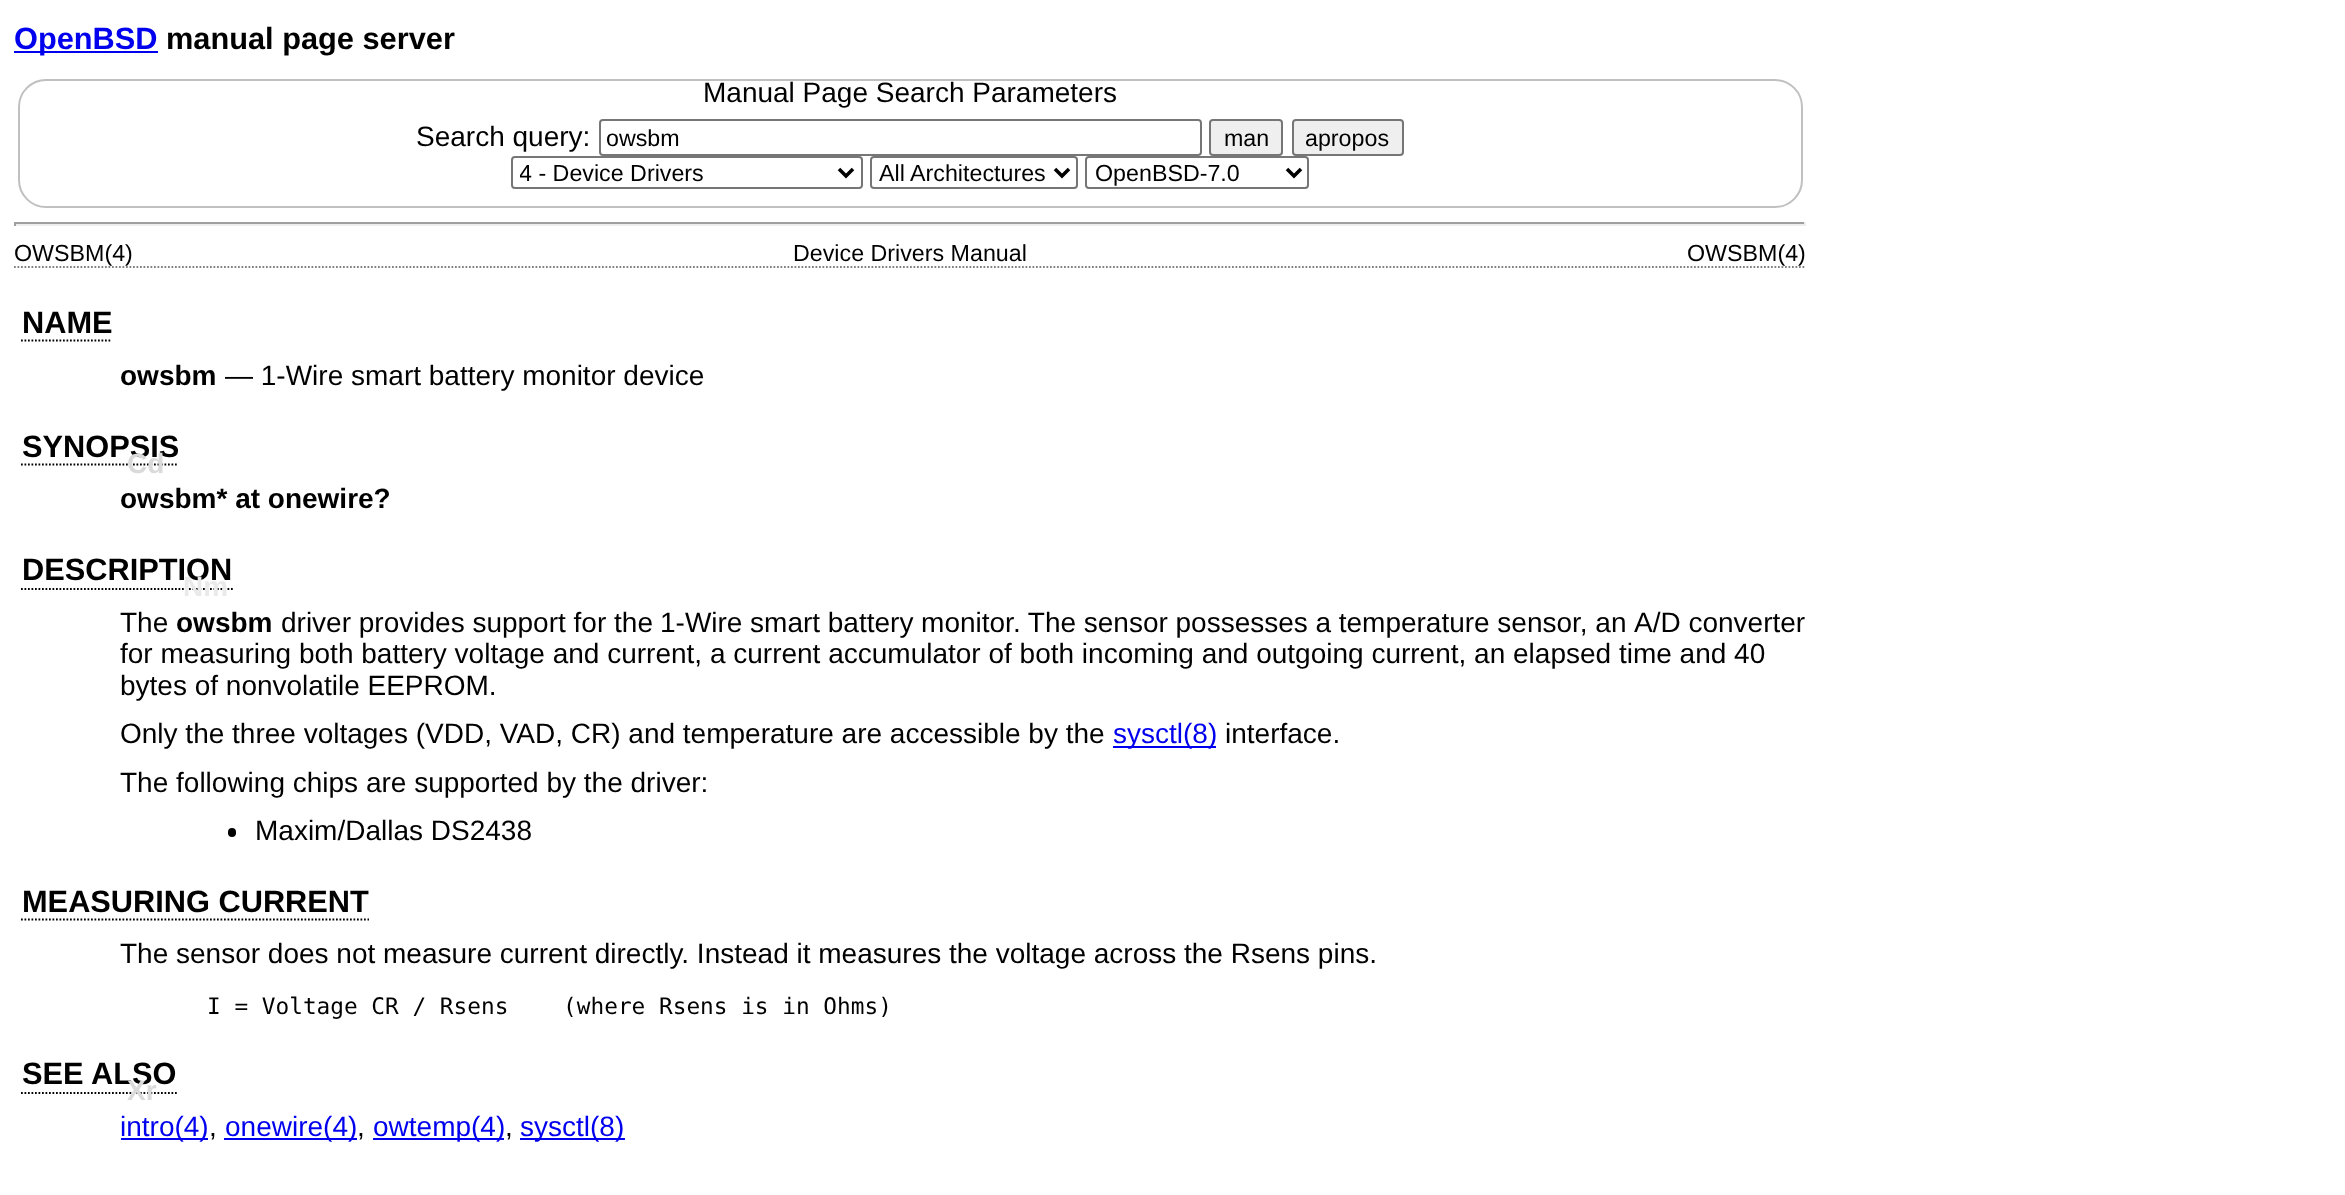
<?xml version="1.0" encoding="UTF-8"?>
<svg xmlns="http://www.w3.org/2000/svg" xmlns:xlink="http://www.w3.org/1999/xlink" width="2345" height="1195">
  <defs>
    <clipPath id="clip1"><rect x="520" y="158" width="313" height="29" /></clipPath>
  </defs>
  <rect width="100%" height="100%" fill="#ffffff" />
  <rect x="14" y="51" width="144" height="2" fill="#0000ee" />
  <rect x="19" y="80" width="1783" height="127" rx="27" fill="none" stroke="#c0c0c0" stroke-width="2" />
  <rect x="600" y="120" width="601" height="35" rx="3" fill="none" stroke="#767676" stroke-width="2" />
  <rect x="1210" y="120" width="72" height="35" rx="3" fill="#efefef" stroke="#767676" stroke-width="2" />
  <rect x="1293" y="120" width="110" height="35" rx="3" fill="#efefef" stroke="#767676" stroke-width="2" />
  <rect x="512" y="157" width="350" height="31" rx="3" fill="none" stroke="#767676" stroke-width="2" />
  <path d="M 839 169 l 7 7 l 7 -7" fill="none" stroke="#000000" stroke-width="3.5" />
  <rect x="871" y="157" width="206" height="31" rx="3" fill="none" stroke="#767676" stroke-width="2" />
  <path d="M 1055 169 l 7 7 l 7 -7" fill="none" stroke="#000000" stroke-width="3.5" />
  <rect x="1086" y="157" width="222" height="31" rx="3" fill="none" stroke="#767676" stroke-width="2" />
  <path d="M 1287 169 l 7 7 l 7 -7" fill="none" stroke="#000000" stroke-width="3.5" />
  <rect x="14" y="222" width="1792" height="2" fill="#9f9f9f" />
  <rect x="1804" y="222" width="2" height="4" fill="#eeeeee" />
  <rect x="14" y="224" width="1792" height="2" fill="#eeeeee" />
  <rect x="14" y="222" width="2" height="4" fill="#9f9f9f" />
  <path d="M 14 267 h 1792" fill="none" stroke="#808080" stroke-width="1.8" stroke-dasharray="1.75 1.75" />
  <path d="M 21 340.5 h 91" fill="none" stroke="#000000" stroke-width="1.8" stroke-dasharray="1.75 1.75" />
  <path d="M 21 464.5 h 157.5" fill="none" stroke="#000000" stroke-width="1.8" stroke-dasharray="1.75 1.75" />
  <path d="M 21 589 h 212" fill="none" stroke="#000000" stroke-width="1.8" stroke-dasharray="1.75 1.75" />
  <rect x="1113" y="746" width="103" height="2" fill="#0000ee" />
  <rect x="228" y="828" width="8" height="9" rx="4" fill="#000000" />
  <path d="M 21 919.5 h 348" fill="none" stroke="#000000" stroke-width="1.8" stroke-dasharray="1.75 1.75" />
  <path d="M 21 1093 h 156" fill="none" stroke="#000000" stroke-width="1.8" stroke-dasharray="1.75 1.75" />
  <rect x="121" y="1138" width="87" height="2" fill="#0000ee" />
  <rect x="224" y="1138" width="133" height="2" fill="#0000ee" />
  <rect x="373" y="1138" width="131" height="2" fill="#0000ee" />
  <rect x="520" y="1138" width="105" height="2" fill="#0000ee" />
  <text x="14" y="49" style="font-family: Liberation Sans; font-size: 30.75px; font-weight: bold; fill: #0000ee">OpenBSD</text>
  <text x="166" y="49" style="font-family: Liberation Sans; font-size: 30.75px; font-weight: bold; fill: #000000">manual page server</text>
  <text x="703" y="102" style="font-family: Liberation Sans; font-size: 28px; fill: #000000">Manual Page Search Parameters</text>
  <text x="416" y="146" style="font-family: Liberation Sans; font-size: 28px; fill: #000000">Search query:</text>
  <text x="606" y="146" style="font-family: Liberation Sans; font-size: 23.25px; fill: #000000">owsbm</text>
  <text x="1224" y="146" style="font-family: Liberation Sans; font-size: 23.25px; fill: #000000">man</text>
  <text x="1305" y="146" style="font-family: Liberation Sans; font-size: 23.25px; fill: #000000">apropos</text>
  <g clip-path="url(#clip1)">
    <text x="519" y="181" style="font-family: Liberation Sans; font-size: 23.25px; fill: #000000">4 - Device Drivers</text>
  </g>
  <text x="879" y="181" style="font-family: Liberation Sans; font-size: 23.25px; fill: #000000">All Architectures</text>
  <text x="1095" y="181" style="font-family: Liberation Sans; font-size: 23.25px; fill: #000000">OpenBSD-7.0</text>
  <text x="14" y="261" style="font-family: Liberation Sans; font-size: 23.25px; fill: #000000">OWSBM(4)</text>
  <text x="793" y="261" style="font-family: Liberation Sans; font-size: 23.25px; fill: #000000">Device Drivers Manual</text>
  <text x="1687" y="261" style="font-family: Liberation Sans; font-size: 23.25px; fill: #000000">OWSBM(4)</text>
  <text x="22" y="333" style="font-family: Liberation Sans; font-size: 30.75px; font-weight: bold; fill: #000000">NAME</text>
  <text x="120" y="385" style="font-family: Liberation Sans; font-size: 28px; font-weight: bold; fill: #000000">owsbm</text>
  <text x="225" y="385" style="font-family: Liberation Sans; font-size: 28px; fill: #000000">— 1-Wire smart battery monitor device</text>
  <text x="22" y="457" style="font-family: Liberation Sans; font-size: 30.75px; font-weight: bold; fill: #000000">SYNOPSIS</text>
  <text x="127" y="473" style="font-family: Liberation Sans; font-size: 28px; font-weight: bold; fill: #dadada">Cd</text>
  <text x="120" y="508" style="font-family: Liberation Sans; font-size: 28px; font-weight: bold; fill: #000000">owsbm* at onewire?</text>
  <text x="22" y="580" style="font-family: Liberation Sans; font-size: 30.75px; font-weight: bold; fill: #000000">DESCRIPTION</text>
  <text x="120" y="632" style="font-family: Liberation Sans; font-size: 28px; fill: #000000">The</text>
  <text x="183" y="596" style="font-family: Liberation Sans; font-size: 28px; font-weight: bold; fill: #eaeaea">Nm</text>
  <text x="176" y="632" style="font-family: Liberation Sans; font-size: 28px; font-weight: bold; fill: #000000">owsbm</text>
  <text x="281" y="632" style="font-family: Liberation Sans; font-size: 28px; fill: #000000">driver provides support for the</text>
  <text x="660" y="632" word-spacing="-0.1" style="font-family: Liberation Sans; font-size: 28px; fill: #000000">1-Wire smart battery monitor. The sensor possesses a temperature sensor, an</text>
  <text x="1634" y="632" style="font-family: Liberation Sans; font-size: 28px; fill: #000000">A/D converter</text>
  <text x="120" y="663" style="font-family: Liberation Sans; font-size: 28px; fill: #000000">for measuring both battery voltage and current, a current accumulator of both incoming and outgoing current, an elapsed time and 40</text>
  <text x="120" y="695" style="font-family: Liberation Sans; font-size: 28px; fill: #000000">bytes of nonvolatile EEPROM.</text>
  <text x="120" y="743" style="font-family: Liberation Sans; font-size: 28px; fill: #000000">Only the three voltages (VDD, VAD, CR) and temperature are accessible by the</text>
  <text x="1113" y="743" style="font-family: Liberation Sans; font-size: 28px; fill: #0000ee">sysctl(8)</text>
  <text x="1225" y="743" style="font-family: Liberation Sans; font-size: 28px; fill: #000000">interface.</text>
  <text x="120" y="792" style="font-family: Liberation Sans; font-size: 28px; fill: #000000">The following chips are supported by the driver:</text>
  <text x="255" y="840" style="font-family: Liberation Sans; font-size: 28px; fill: #000000">Maxim/Dallas DS2438</text>
  <text x="22" y="912" style="font-family: Liberation Sans; font-size: 30.75px; font-weight: bold; fill: #000000">MEASURING CURRENT</text>
  <text x="120" y="963" style="font-family: Liberation Sans; font-size: 28px; fill: #000000">The sensor does not measure current directly. Instead it measures the voltage across the Rsens pins.</text>
  <text x="207" y="1014" style="font-family: DejaVu Sans Mono; font-size: 22.75px; fill: #000000" xml:space="preserve">I = Voltage CR / Rsens    (where Rsens is in Ohms)</text>
  <text x="22" y="1084" style="font-family: Liberation Sans; font-size: 30.75px; font-weight: bold; fill: #000000">SEE</text>
  <text x="91" y="1084" style="font-family: Liberation Sans; font-size: 30.75px; font-weight: bold; fill: #000000">ALSO</text>
  <text x="127" y="1100" style="font-family: Liberation Sans; font-size: 28px; font-weight: bold; fill: #dadada">Xr</text>
  <text x="120" y="1136" style="font-family: Liberation Sans; font-size: 28px; fill: #0000ee">intro(4)</text>
  <text x="209" y="1136" style="font-family: Liberation Sans; font-size: 28px; fill: #000000">,</text>
  <text x="225" y="1136" style="font-family: Liberation Sans; font-size: 28px; fill: #0000ee">onewire(4)</text>
  <text x="357" y="1136" style="font-family: Liberation Sans; font-size: 28px; fill: #000000">,</text>
  <text x="373" y="1136" style="font-family: Liberation Sans; font-size: 28px; fill: #0000ee">owtemp(4)</text>
  <text x="505" y="1136" style="font-family: Liberation Sans; font-size: 28px; fill: #000000">,</text>
  <text x="520" y="1136" style="font-family: Liberation Sans; font-size: 28px; fill: #0000ee">sysctl(8)</text>
</svg>
